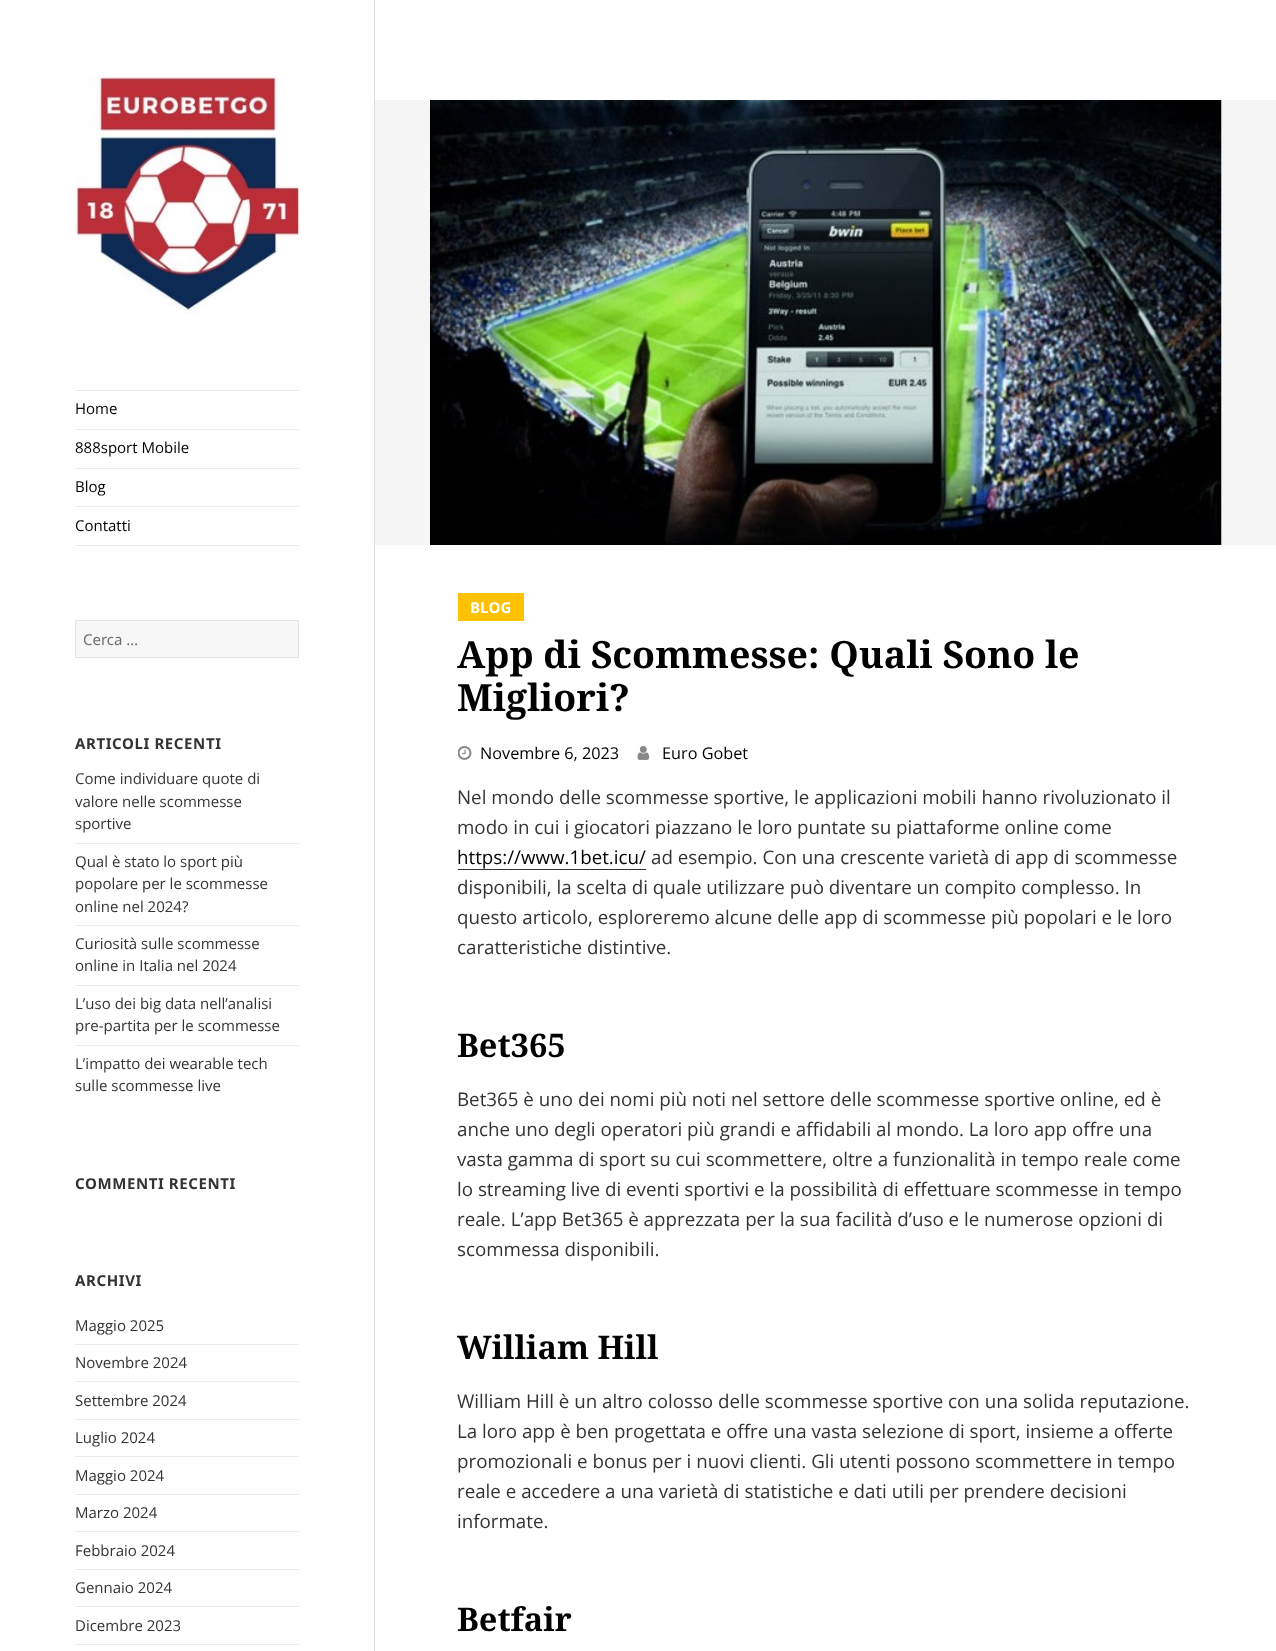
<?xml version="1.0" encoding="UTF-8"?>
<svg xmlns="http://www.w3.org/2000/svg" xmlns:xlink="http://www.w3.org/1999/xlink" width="1276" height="1651">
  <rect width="100%" height="100%" fill="#ffffff" />
  <rect x="374" width="1" height="1651" fill="#dedede" />
  <image x="75" y="75" width="224" height="240" xlink:href="image1.png" />
  <rect x="75" y="390" width="224" height="1" fill="#ebebeb" />
  <rect x="75" y="545" width="224" height="1" fill="#ebebeb" />
  <rect x="75" y="429" width="224" height="1" fill="#ebebeb" />
  <rect x="75" y="468" width="224" height="1" fill="#ebebeb" />
  <rect x="75" y="506" width="224" height="1" fill="#ebebeb" />
  <rect x="75.5" y="620.5" width="223" height="37" fill="#f7f7f7" stroke="#e3e3e3" />
  <rect x="75" y="843" width="224" height="1" fill="#ebebeb" />
  <rect x="75" y="925" width="224" height="1" fill="#ebebeb" />
  <rect x="75" y="985" width="224" height="1" fill="#ebebeb" />
  <rect x="75" y="1045" width="224" height="1" fill="#ebebeb" />
  <rect x="75" y="1344" width="224" height="1" fill="#ebebeb" />
  <rect x="75" y="1381" width="224" height="1" fill="#ebebeb" />
  <rect x="75" y="1419" width="224" height="1" fill="#ebebeb" />
  <rect x="75" y="1456" width="224" height="1" fill="#ebebeb" />
  <rect x="75" y="1494" width="224" height="1" fill="#ebebeb" />
  <rect x="75" y="1531" width="224" height="1" fill="#ebebeb" />
  <rect x="75" y="1569" width="224" height="1" fill="#ebebeb" />
  <rect x="75" y="1606" width="224" height="1" fill="#ebebeb" />
  <rect x="75" y="1644" width="224" height="1" fill="#ebebeb" />
  <rect x="375" y="100" width="901" height="445" fill="#f5f5f5" />
  <image x="430" y="100" width="792" height="445" xlink:href="image2.png" />
  <rect x="458" y="593" width="66" height="28" fill="#ffc104" />
  <image x="458" y="746" width="14" height="14" xlink:href="image3.png" />
  <image x="637" y="746" width="13" height="14" xlink:href="image4.png" />
  <rect x="458" y="869" width="188" height="1" fill="#333333" />
  <text x="75" y="414" style="font-family: Open Sans; font-size: 15px; fill: #000000">Home</text>
  <text x="75" y="453" style="font-family: Open Sans; font-size: 15px; fill: #000000">888sport Mobile</text>
  <text x="75" y="492" style="font-family: Open Sans; font-size: 15px; fill: #000000">Blog</text>
  <text x="75" y="531" style="font-family: Open Sans; font-size: 15px; fill: #000000">Contatti</text>
  <text x="83" y="645" style="font-family: Noto Sans; font-size: 15px; fill: #6e6e6e">Cerca …</text>
  <text x="75" y="749" style="font-family: Noto Sans; font-size: 15px; font-weight: bold; letter-spacing: 0.6px; fill: #333333">ARTICOLI RECENTI</text>
  <text x="75" y="784" style="font-family: Open Sans; font-size: 15px; fill: #333333">Come individuare quote di</text>
  <text x="75" y="807" style="font-family: Open Sans; font-size: 15px; fill: #333333">valore nelle scommesse</text>
  <text x="75" y="829" style="font-family: Open Sans; font-size: 15px; fill: #333333">sportive</text>
  <text x="75" y="867" style="font-family: Open Sans; font-size: 15px; fill: #333333">Qual è stato lo sport più</text>
  <text x="75" y="889" style="font-family: Open Sans; font-size: 15px; fill: #333333">popolare per le scommesse</text>
  <text x="75" y="912" style="font-family: Open Sans; font-size: 15px; fill: #333333">online nel 2024?</text>
  <text x="75" y="949" style="font-family: Open Sans; font-size: 15px; fill: #333333">Curiosità sulle scommesse</text>
  <text x="75" y="971" style="font-family: Open Sans; font-size: 15px; fill: #333333">online in Italia nel 2024</text>
  <text x="75" y="1009" style="font-family: Open Sans; font-size: 15px; fill: #333333">L’uso dei big data nell’analisi</text>
  <text x="75" y="1031" style="font-family: Open Sans; font-size: 15px; fill: #333333">pre-partita per le scommesse</text>
  <text x="75" y="1069" style="font-family: Open Sans; font-size: 15px; fill: #333333">L’impatto dei wearable tech</text>
  <text x="75" y="1091" style="font-family: Open Sans; font-size: 15px; fill: #333333">sulle scommesse live</text>
  <text x="75" y="1189" style="font-family: Noto Sans; font-size: 15px; font-weight: bold; letter-spacing: 0.6px; fill: #333333">COMMENTI RECENTI</text>
  <text x="75" y="1286" style="font-family: Noto Sans; font-size: 15px; font-weight: bold; letter-spacing: 0.6px; fill: #333333">ARCHIVI</text>
  <text x="75" y="1331" style="font-family: Open Sans; font-size: 15px; fill: #333333">Maggio 2025</text>
  <text x="75" y="1368" style="font-family: Open Sans; font-size: 15px; fill: #333333">Novembre 2024</text>
  <text x="75" y="1406" style="font-family: Open Sans; font-size: 15px; fill: #333333">Settembre 2024</text>
  <text x="75" y="1443" style="font-family: Open Sans; font-size: 15px; fill: #333333">Luglio 2024</text>
  <text x="75" y="1481" style="font-family: Open Sans; font-size: 15px; fill: #333333">Maggio 2024</text>
  <text x="75" y="1518" style="font-family: Open Sans; font-size: 15px; fill: #333333">Marzo 2024</text>
  <text x="75" y="1556" style="font-family: Open Sans; font-size: 15px; fill: #333333">Febbraio 2024</text>
  <text x="75" y="1593" style="font-family: Open Sans; font-size: 15px; fill: #333333">Gennaio 2024</text>
  <text x="75" y="1631" style="font-family: Open Sans; font-size: 15px; fill: #333333">Dicembre 2023</text>
  <text x="470" y="613" style="font-family: Open Sans; font-size: 15px; font-weight: bold; fill: #ffffff">BLOG</text>
  <text x="457" y="668" style="font-family: Noto Serif; font-size: 37.5px; font-weight: bold; fill: #000000">App di Scommesse: Quali Sono le</text>
  <text x="457" y="711" style="font-family: Noto Serif; font-size: 37.5px; font-weight: bold; fill: #000000">Migliori?</text>
  <text x="480" y="759" style="font-family: Open Sans; font-size: 16.25px; fill: #000000">Novembre 6, 2023</text>
  <text x="662" y="759" style="font-family: Open Sans; font-size: 16.25px; fill: #000000">Euro Gobet</text>
  <text x="457" y="804" style="font-family: Open Sans; font-size: 18.75px; fill: #333333">Nel mondo delle scommesse sportive, le applicazioni mobili hanno rivoluzionato il</text>
  <text x="457" y="834" style="font-family: Open Sans; font-size: 18.75px; fill: #333333">modo in cui i giocatori piazzano le loro puntate su piattaforme online come</text>
  <text x="457" y="864" style="font-family: Open Sans; font-size: 18.75px; fill: #000000">https://www.1bet.icu/</text>
  <text x="651" y="864" style="font-family: Open Sans; font-size: 18.75px; fill: #333333">ad esempio. Con una crescente varietà di app di scommesse</text>
  <text x="457" y="894" style="font-family: Open Sans; font-size: 18.75px; fill: #333333">disponibili, la scelta di quale utilizzare può diventare un compito complesso. In</text>
  <text x="457" y="924" style="font-family: Open Sans; font-size: 18.75px; fill: #333333">questo articolo, esploreremo alcune delle app di scommesse più popolari e le loro</text>
  <text x="457" y="954" style="font-family: Open Sans; font-size: 18.75px; fill: #333333">caratteristiche distintive.</text>
  <text x="457" y="1057" style="font-family: Noto Serif; font-size: 32.5px; font-weight: bold; fill: #000000">Bet365</text>
  <text x="457" y="1106" style="font-family: Open Sans; font-size: 18.75px; fill: #333333">Bet365 è uno dei nomi più noti nel settore delle scommesse sportive online, ed è</text>
  <text x="457" y="1136" style="font-family: Open Sans; font-size: 18.75px; fill: #333333">anche uno degli operatori più grandi e affidabili al mondo. La loro app offre una</text>
  <text x="457" y="1166" style="font-family: Open Sans; font-size: 18.75px; fill: #333333">vasta gamma di sport su cui scommettere, oltre a funzionalità in tempo reale come</text>
  <text x="457" y="1196" style="font-family: Open Sans; font-size: 18.75px; fill: #333333">lo streaming live di eventi sportivi e la possibilità di effettuare scommesse in tempo</text>
  <text x="457" y="1226" style="font-family: Open Sans; font-size: 18.75px; fill: #333333">reale. L’app Bet365 è apprezzata per la sua facilità d’uso e le numerose opzioni di</text>
  <text x="457" y="1256" style="font-family: Open Sans; font-size: 18.75px; fill: #333333">scommessa disponibili.</text>
  <text x="457" y="1359" style="font-family: Noto Serif; font-size: 32.5px; font-weight: bold; fill: #000000">William Hill</text>
  <text x="457" y="1408" style="font-family: Open Sans; font-size: 18.75px; fill: #333333">William Hill è un altro colosso delle scommesse sportive con una solida reputazione.</text>
  <text x="457" y="1438" style="font-family: Open Sans; font-size: 18.75px; fill: #333333">La loro app è ben progettata e offre una vasta selezione di sport, insieme a offerte</text>
  <text x="457" y="1468" style="font-family: Open Sans; font-size: 18.75px; fill: #333333">promozionali e bonus per i nuovi clienti. Gli utenti possono scommettere in tempo</text>
  <text x="457" y="1498" style="font-family: Open Sans; font-size: 18.75px; fill: #333333">reale e accedere a una varietà di statistiche e dati utili per prendere decisioni</text>
  <text x="457" y="1528" style="font-family: Open Sans; font-size: 18.75px; fill: #333333">informate.</text>
  <text x="457" y="1631" style="font-family: Noto Serif; font-size: 32.5px; font-weight: bold; fill: #000000">Betfair</text>
</svg>
